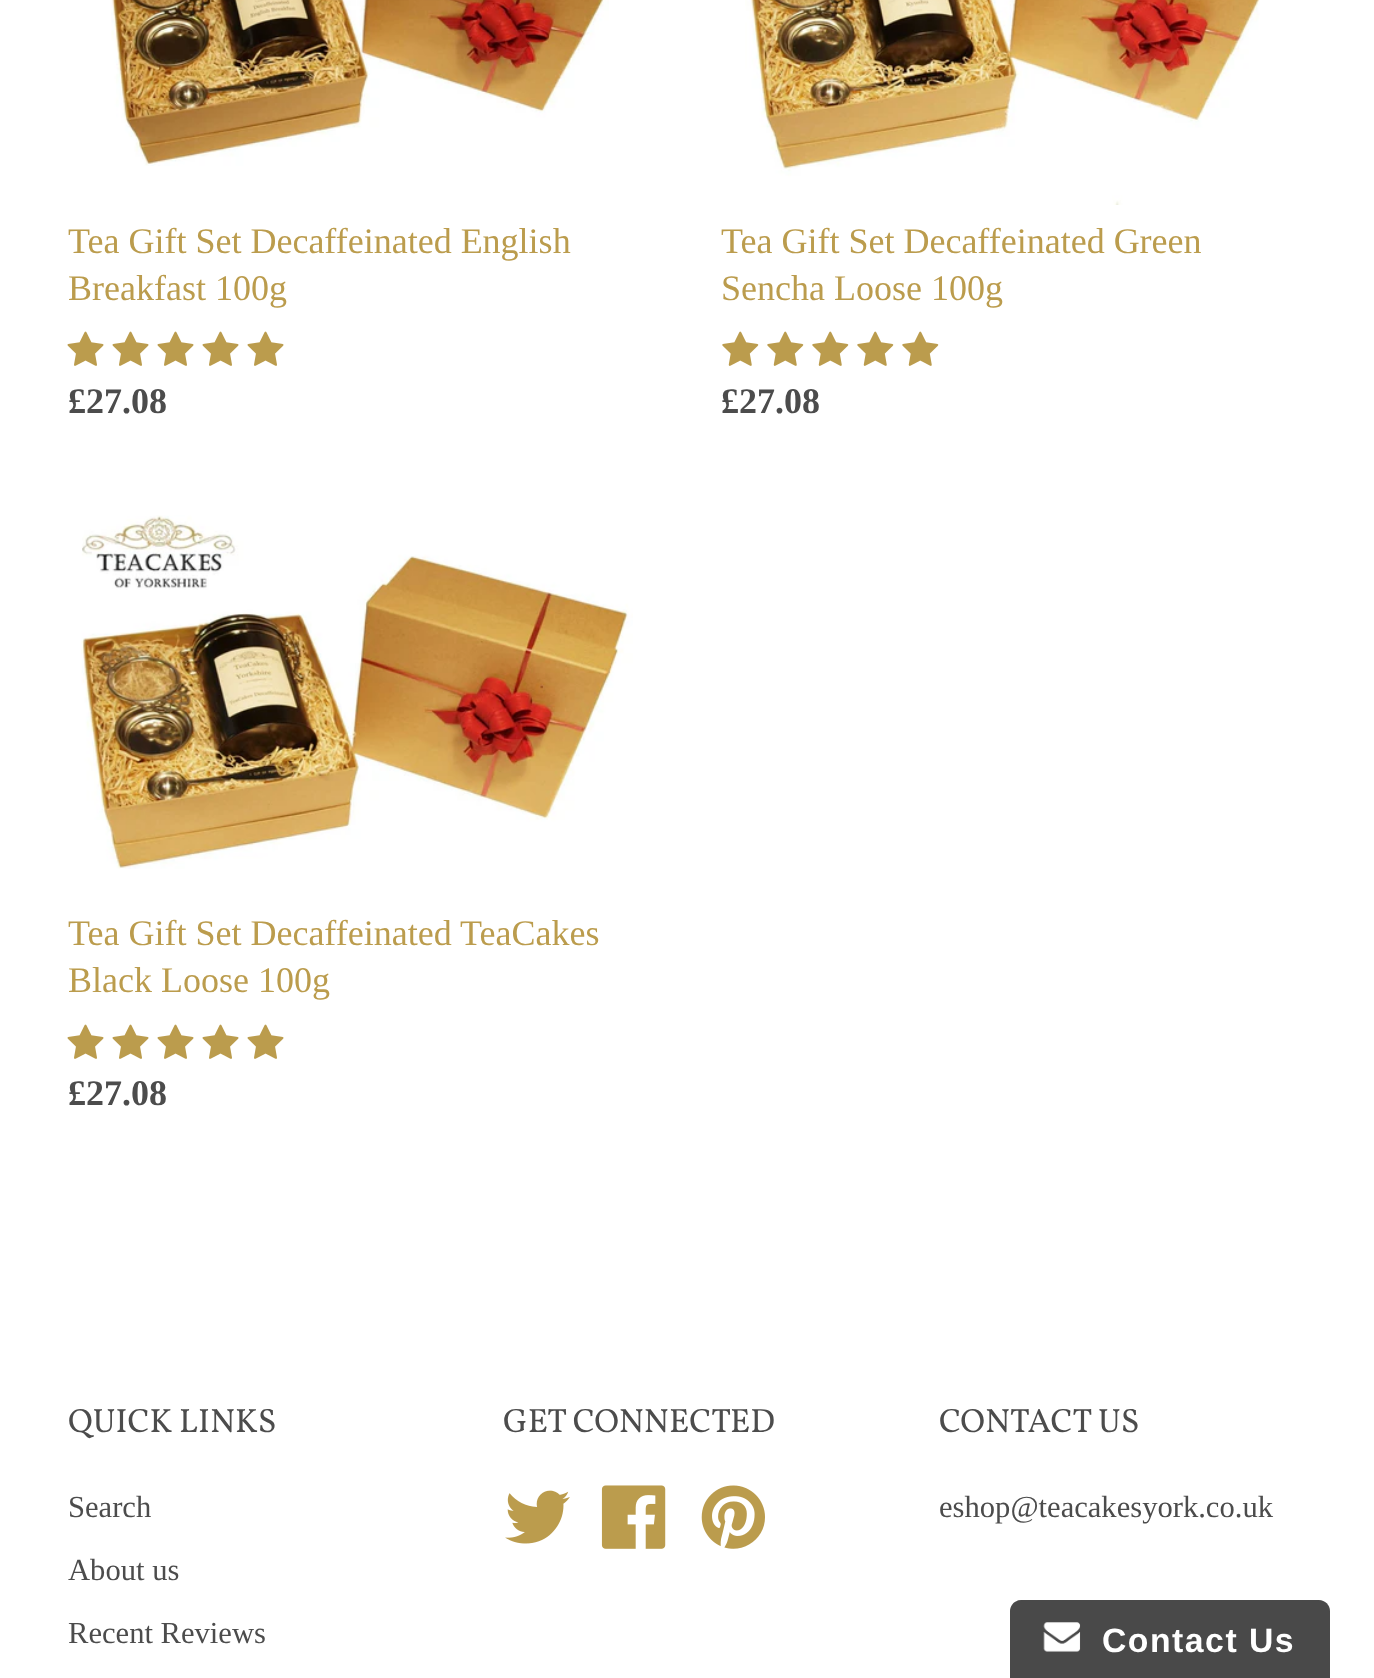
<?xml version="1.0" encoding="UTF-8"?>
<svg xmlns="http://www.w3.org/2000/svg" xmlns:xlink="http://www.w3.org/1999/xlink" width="1374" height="1678">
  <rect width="100%" height="100%" fill="#ffffff" />
  <image x="111" y="0" width="498" height="166" xlink:href="image1.png" />
  <image x="67" y="331" width="37" height="35" xlink:href="image2.png" />
  <image x="112" y="331" width="37" height="35" xlink:href="image2.png" />
  <image x="157" y="331" width="37" height="35" xlink:href="image2.png" />
  <image x="202" y="331" width="37" height="35" xlink:href="image2.png" />
  <image x="247" y="331" width="37" height="35" xlink:href="image2.png" />
  <image x="745" y="0" width="515" height="205" xlink:href="image3.png" />
  <image x="722" y="331" width="37" height="35" xlink:href="image4.png" />
  <image x="767" y="331" width="37" height="35" xlink:href="image4.png" />
  <image x="812" y="331" width="37" height="35" xlink:href="image4.png" />
  <image x="857" y="331" width="37" height="35" xlink:href="image4.png" />
  <image x="902" y="331" width="37" height="35" xlink:href="image4.png" />
  <image x="81" y="515" width="552" height="354" xlink:href="image5.png" />
  <image x="67" y="1024" width="37" height="35" xlink:href="image2.png" />
  <image x="112" y="1024" width="37" height="35" xlink:href="image2.png" />
  <image x="157" y="1024" width="37" height="35" xlink:href="image2.png" />
  <image x="202" y="1024" width="37" height="35" xlink:href="image2.png" />
  <image x="247" y="1024" width="37" height="35" xlink:href="image2.png" />
  <image x="505" y="1490" width="65" height="54" xlink:href="image6.png" />
  <image x="601" y="1485" width="65" height="64" xlink:href="image7.png" />
  <image x="701" y="1485" width="64" height="64" xlink:href="image8.png" />
  <path d="M 1021 1600 h 298 c 6 0 11 5 11 11 v 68 h -320 v -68 c 0 -6 5 -11 11 -11 z" fill="#494949" />
  <image x="1043" y="1622" width="38" height="30" xlink:href="image9.png" />
  <text x="68" y="253" style="font-family: Liberation Serif; font-size: 36px; fill: #bb9c4d">Tea Gift Set Decaffeinated English</text>
  <text x="68" y="300" style="font-family: Liberation Serif; font-size: 36px; fill: #bb9c4d">Breakfast 100g</text>
  <text x="68" y="413" style="font-family: Liberation Serif; font-size: 36px; font-weight: bold; fill: #4c4c4c">£27.08</text>
  <text x="721" y="253" style="font-family: Liberation Serif; font-size: 36px; fill: #bb9c4d">Tea Gift Set Decaffeinated Green</text>
  <text x="721" y="300" style="font-family: Liberation Serif; font-size: 36px; fill: #bb9c4d">Sencha Loose 100g</text>
  <text x="721" y="413" style="font-family: Liberation Serif; font-size: 36px; font-weight: bold; fill: #4c4c4c">£27.08</text>
  <text x="68" y="945" style="font-family: Liberation Serif; font-size: 36px; fill: #bb9c4d">Tea Gift Set Decaffeinated TeaCakes</text>
  <text x="68" y="992" style="font-family: Liberation Serif; font-size: 36px; fill: #bb9c4d">Black Loose 100g</text>
  <text x="68" y="1105" style="font-family: Liberation Serif; font-size: 36px; font-weight: bold; fill: #4c4c4c">£27.08</text>
  <text x="68" y="1432" style="font-family: Vollkorn; font-size: 33.75px; fill: #4c4c4c">QUICK LINKS</text>
  <text x="68" y="1517" style="font-family: Liberation Serif; font-size: 30.6px; fill: #4c4c4c">Search</text>
  <text x="68" y="1580" style="font-family: Liberation Serif; font-size: 30.6px; fill: #4c4c4c">About us</text>
  <text x="68" y="1643" style="font-family: Liberation Serif; font-size: 30.6px; fill: #4c4c4c">Recent Reviews</text>
  <text x="503" y="1432" style="font-family: Vollkorn; font-size: 33.75px; fill: #4c4c4c">GET CONNECTED</text>
  <text x="939" y="1432" style="font-family: Vollkorn; font-size: 33.75px; fill: #4c4c4c">CONTACT US</text>
  <text x="939" y="1517" style="font-family: Liberation Serif; font-size: 30.6px; fill: #4c4c4c">eshop@teacakesyork.co.uk</text>
  <text x="1102" y="1652" style="font-family: Liberation Sans; font-size: 33.75px; font-weight: bold; letter-spacing: 1.5px; fill: #ffffff">Contact Us</text>
</svg>
